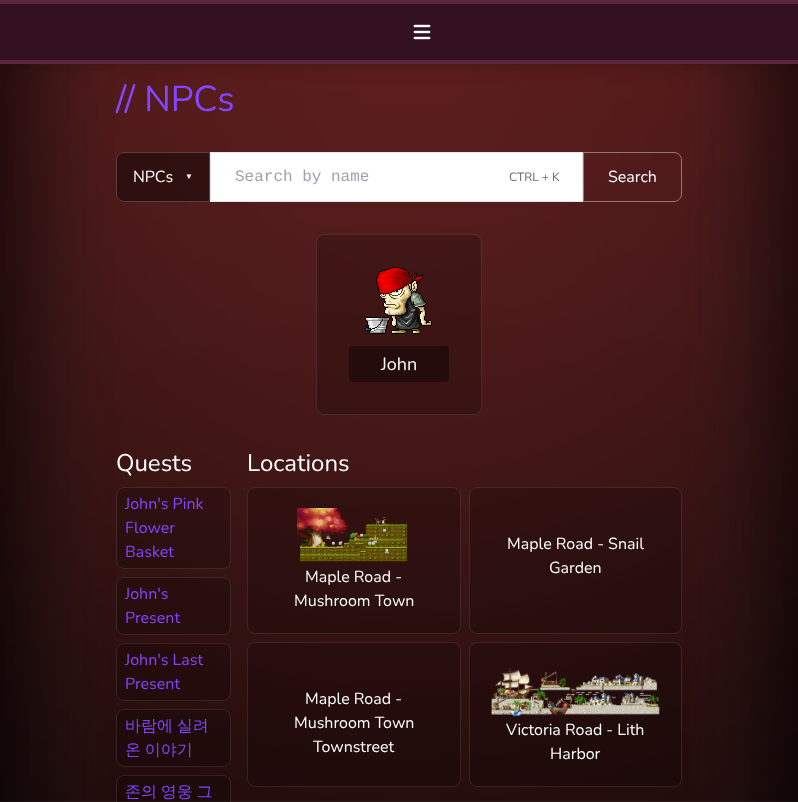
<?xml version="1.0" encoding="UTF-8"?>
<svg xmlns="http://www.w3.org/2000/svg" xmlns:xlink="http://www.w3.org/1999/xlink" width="798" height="802">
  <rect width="100%" height="100%" fill="#ffffff" />
  <image x="0" y="64" width="798" height="738" xlink:href="image1.png" />
  <image x="0" y="64" width="798" height="738" xlink:href="image3.png" />
  <rect x="4" y="8" width="790" height="56" fill="#000000" fill-opacity="0.1" filter="blur(3px)" />
  <rect x="3" y="13" width="792" height="58" fill="#000000" fill-opacity="0.1" filter="blur(7.5px)" />
  <rect width="798" height="64" fill="#592540" />
  <rect y="4" width="798" height="56" fill="#331122" />
  <image x="413" y="24" width="18" height="16" xlink:href="image2.png" />
  <path d="M 124 152 h 86 v 50 h -86 c -4.5 0 -8 -3.5 -8 -8 v -34 c 0 -4.5 3.5 -8 8 -8 z" fill="#000000" fill-opacity="0.4" />
  <path d="M 124 152.5 h 85.5 v 49 h -85.5 c -4 0 -7.5 -3.5 -7.5 -7.5 v -34 c 0 -4 3.5 -7.5 7.5 -7.5 z" fill="none" stroke="#ffffff" stroke-opacity="0.2" />
  <rect x="210.5" y="152.5" width="372" height="49" fill="#ffffff" stroke="#e5e7eb" />
  <path d="M 583.5 152.5 h 90.5 c 4 0 7.5 3.5 7.5 7.5 v 34 c 0 4 -3.5 7.5 -7.5 7.5 h -90.5 z" fill="none" stroke="#ffffff" stroke-opacity="0.4" />
  <rect x="316" y="234" width="166" height="181" rx="8" fill="#000000" fill-opacity="0.2" />
  <rect x="316.5" y="234.5" width="165" height="180" rx="7.5" fill="none" stroke="#ffffff" stroke-opacity="0.1" />
  <image x="365" y="267" width="67" height="67" xlink:href="image4.png" />
  <rect x="349" y="346" width="100" height="36" rx="4" fill="#240c0c" />
  <rect x="116" y="487" width="115" height="82" rx="8" fill="#000000" fill-opacity="0.2" />
  <rect x="116.5" y="487.5" width="114" height="81" rx="7.5" fill="none" stroke="#ffffff" stroke-opacity="0.1" />
  <rect x="116" y="577" width="115" height="58" rx="8" fill="#000000" fill-opacity="0.2" />
  <rect x="116.5" y="577.5" width="114" height="57" rx="7.5" fill="none" stroke="#ffffff" stroke-opacity="0.1" />
  <rect x="116" y="643" width="115" height="58" rx="8" fill="#000000" fill-opacity="0.2" />
  <rect x="116.5" y="643.5" width="114" height="57" rx="7.5" fill="none" stroke="#ffffff" stroke-opacity="0.1" />
  <rect x="116" y="709" width="115" height="58" rx="8" fill="#000000" fill-opacity="0.2" />
  <rect x="116.5" y="709.5" width="114" height="57" rx="7.5" fill="none" stroke="#ffffff" stroke-opacity="0.1" />
  <rect x="116" y="775" width="115" height="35" rx="8" fill="#000000" fill-opacity="0.2" />
  <rect x="116.5" y="775.5" width="114" height="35" rx="7.5" fill="none" stroke="#ffffff" stroke-opacity="0.1" />
  <rect x="469" y="487" width="213" height="147" rx="8" fill="#000000" fill-opacity="0.2" />
  <rect x="469.5" y="487.5" width="212" height="146" rx="7.5" fill="none" stroke="#ffffff" stroke-opacity="0.1" />
  <rect x="247" y="487" width="214" height="147" rx="8" fill="#000000" fill-opacity="0.2" />
  <rect x="247.5" y="487.5" width="213" height="146" rx="7.5" fill="none" stroke="#ffffff" stroke-opacity="0.1" />
  <image x="297" y="508" width="110" height="54" xlink:href="image5.png" />
  <rect x="247" y="642" width="214" height="145" rx="8" fill="#000000" fill-opacity="0.2" />
  <rect x="247.5" y="642.5" width="213" height="144" rx="7.5" fill="none" stroke="#ffffff" stroke-opacity="0.1" />
  <rect x="469" y="642" width="213" height="145" rx="8" fill="#000000" fill-opacity="0.2" />
  <rect x="469.5" y="642.5" width="212" height="144" rx="7.5" fill="none" stroke="#ffffff" stroke-opacity="0.1" />
  <image x="491" y="667" width="169" height="50" xlink:href="image6.png" />
  <text x="116" y="111" style="font-family: Nunito; font-size: 36px; fill: #8345ff">// NPCs</text>
  <text x="133" y="182" style="font-family: Nunito; font-size: 16px; fill: #ffffff">NPCs</text>
  <text x="185" y="179" style="font-family: Liberation Sans; font-size: 8px; fill: #ffffff">▼</text>
  <text x="235" y="181" style="font-family: Liberation Mono; font-size: 16px; fill: #9ca3af">Search by name</text>
  <text x="509" y="181" style="font-family: Nunito; font-size: 12px; fill: #666666">CTRL + K</text>
  <text x="608" y="182" style="font-family: Nunito; font-size: 16px; fill: #ffffff">Search</text>
  <text x="381" y="370" style="font-family: Nunito; font-size: 18px; fill: #ffffff">John</text>
  <text x="116" y="471" style="font-family: Nunito; font-size: 24px; fill: #ffffff">Quests</text>
  <text x="125" y="509" style="font-family: Nunito; font-size: 16px; fill: #8345ff">John's Pink</text>
  <text x="125" y="533" style="font-family: Nunito; font-size: 16px; fill: #8345ff">Flower</text>
  <text x="125" y="557" style="font-family: Nunito; font-size: 16px; fill: #8345ff">Basket</text>
  <text x="125" y="599" style="font-family: Nunito; font-size: 16px; fill: #8345ff">John's</text>
  <text x="125" y="623" style="font-family: Nunito; font-size: 16px; fill: #8345ff">Present</text>
  <text x="125" y="665" style="font-family: Nunito; font-size: 16px; fill: #8345ff">John's Last</text>
  <text x="125" y="689" style="font-family: Nunito; font-size: 16px; fill: #8345ff">Present</text>
  <text x="125" y="731" word-spacing="-1" style="font-family: WenQuanYi Zen Hei; font-size: 16px; font-weight: 500; fill: #8345ff">바람에 실려</text>
  <text x="125" y="755" word-spacing="-1" style="font-family: WenQuanYi Zen Hei; font-size: 16px; font-weight: 500; fill: #8345ff">온 이야기</text>
  <text x="125" y="797" word-spacing="-1" style="font-family: WenQuanYi Zen Hei; font-size: 16px; font-weight: 500; fill: #8345ff">존의 영웅 그</text>
  <text x="247" y="471" style="font-family: Nunito; font-size: 24px; fill: #ffffff">Locations</text>
  <text x="507" y="549" style="font-family: Nunito; font-size: 16px; fill: #ffffff">Maple Road - Snail</text>
  <text x="549" y="573" style="font-family: Nunito; font-size: 16px; fill: #ffffff">Garden</text>
  <text x="305" y="582" style="font-family: Nunito; font-size: 16px; fill: #ffffff">Maple Road -</text>
  <text x="294" y="606" style="font-family: Nunito; font-size: 16px; fill: #ffffff">Mushroom Town</text>
  <text x="305" y="704" style="font-family: Nunito; font-size: 16px; fill: #ffffff">Maple Road -</text>
  <text x="294" y="728" style="font-family: Nunito; font-size: 16px; fill: #ffffff">Mushroom Town</text>
  <text x="313" y="752" style="font-family: Nunito; font-size: 16px; fill: #ffffff">Townstreet</text>
  <text x="506" y="735" style="font-family: Nunito; font-size: 16px; fill: #ffffff">Victoria Road - Lith</text>
  <text x="550" y="759" style="font-family: Nunito; font-size: 16px; fill: #ffffff">Harbor</text>
</svg>
